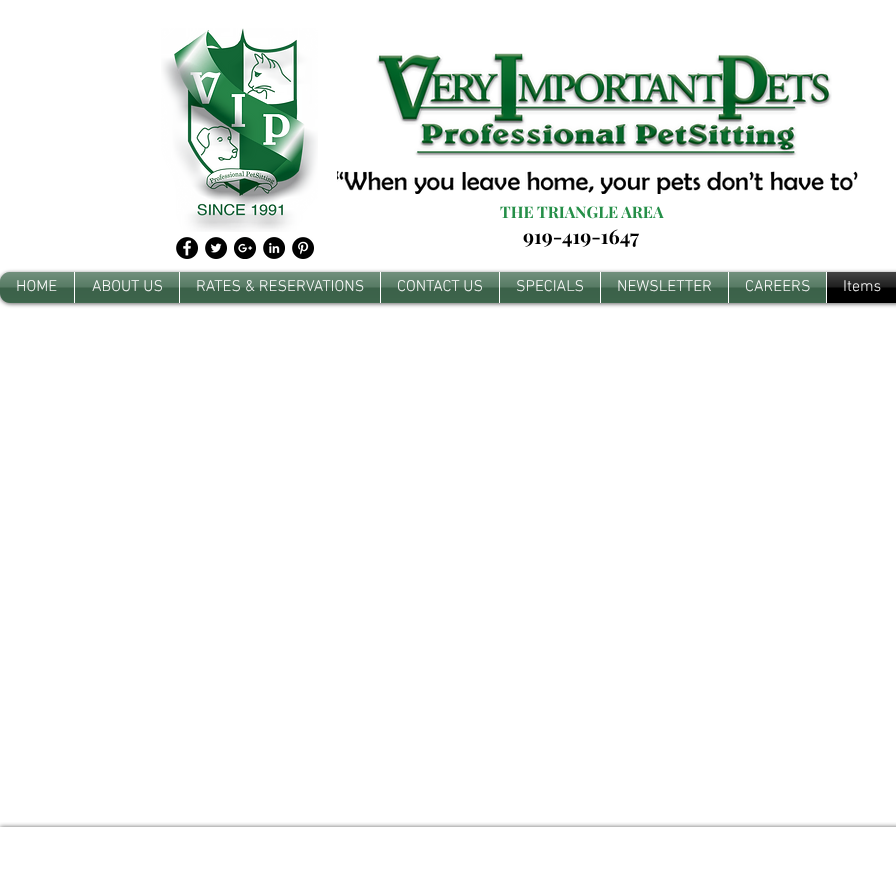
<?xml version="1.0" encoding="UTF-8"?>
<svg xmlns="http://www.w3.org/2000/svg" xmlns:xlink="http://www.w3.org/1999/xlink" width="896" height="881">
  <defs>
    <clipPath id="clip1"><rect x="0" y="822" width="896" height="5" /></clipPath>
  </defs>
  <rect width="100%" height="100%" fill="#ffffff" />
  <image x="161" y="28" width="157" height="204" xlink:href="image1.png" />
  <image x="376" y="53" width="456" height="105" xlink:href="image2.png" />
  <image x="337" y="171" width="521" height="23" xlink:href="image3.png" />
  <rect y="273" width="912" height="31" rx="10" fill="#000000" fill-opacity="0.6" filter="blur(2px)" />
  <image x="0" y="272" width="10" height="30" xlink:href="image4.png" />
  <path d="M 10 272 h 64 v 31 h -64 c -5.5 0 -10 -4.5 -10 -10 v -11 c 0 -5.5 4.5 -10 10 -10 z" fill="#40694f" />
  <rect x="75" y="272" width="104" height="31" fill="#40694f" />
  <rect x="74" y="272" width="1" height="31" fill="#ffffff" />
  <rect x="180" y="272" width="200" height="31" fill="#40694f" />
  <rect x="179" y="272" width="1" height="31" fill="#ffffff" />
  <rect x="381" y="272" width="118" height="31" fill="#40694f" />
  <rect x="380" y="272" width="1" height="31" fill="#ffffff" />
  <rect x="500" y="272" width="100" height="31" fill="#40694f" />
  <rect x="499" y="272" width="1" height="31" fill="#ffffff" />
  <rect x="601" y="272" width="127" height="31" fill="#40694f" />
  <rect x="600" y="272" width="1" height="31" fill="#ffffff" />
  <rect x="729" y="272" width="97" height="31" fill="#40694f" />
  <rect x="728" y="272" width="1" height="31" fill="#ffffff" />
  <rect x="827" y="272" width="69" height="31" fill="#000000" />
  <rect x="826" y="272" width="1" height="31" fill="#ffffff" />
  <image x="176" y="237" width="22" height="22" xlink:href="image13.png" />
  <image x="205" y="237" width="22" height="22" xlink:href="image14.png" />
  <image x="234" y="237" width="22" height="22" xlink:href="image15.png" />
  <image x="263" y="237" width="22" height="22" xlink:href="image16.png" />
  <image x="292" y="237" width="22" height="22" xlink:href="image17.png" />
  <g clip-path="url(#clip1)">
    <rect y="827" width="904" height="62" fill="#000000" fill-opacity="0.6" filter="blur(2.5px)" />
  </g>
  <text x="500" y="218" style="font-family: Playfair Display; font-size: 16px; font-weight: bold; fill: #258f48">THE TRIANGLE AREA</text>
  <text x="523" y="244" style="font-family: Playfair Display; font-size: 20px; font-weight: bold; fill: #000000">919-419-1647</text>
  <text x="16" y="291" style="font-family: 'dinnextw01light'; font-size: 16px; font-weight: 300; fill: #ffffff">HOME</text>
  <image x="0" y="272" width="74" height="30" xlink:href="image5.png" />
  <text x="92" y="291" style="font-family: 'dinnextw01light'; font-size: 16px; font-weight: 300; fill: #ffffff">ABOUT US</text>
  <image x="75" y="272" width="104" height="30" xlink:href="image6.png" />
  <text x="196" y="291" style="font-family: 'dinnextw01light'; font-size: 16px; font-weight: 300; fill: #ffffff">RATES &amp; RESERVATIONS</text>
  <image x="180" y="272" width="200" height="30" xlink:href="image7.png" />
  <text x="397" y="291" style="font-family: 'dinnextw01light'; font-size: 16px; font-weight: 300; fill: #ffffff">CONTACT US</text>
  <image x="381" y="272" width="118" height="30" xlink:href="image8.png" />
  <text x="516" y="291" style="font-family: 'dinnextw01light'; font-size: 16px; font-weight: 300; fill: #ffffff">SPECIALS</text>
  <image x="500" y="272" width="100" height="30" xlink:href="image9.png" />
  <text x="617" y="291" style="font-family: 'dinnextw01light'; font-size: 16px; font-weight: 300; fill: #ffffff">NEWSLETTER</text>
  <image x="601" y="272" width="127" height="30" xlink:href="image10.png" />
  <text x="745" y="291" style="font-family: 'dinnextw01light'; font-size: 16px; font-weight: 300; fill: #ffffff">CAREERS</text>
  <image x="729" y="272" width="97" height="30" xlink:href="image11.png" />
  <text x="843" y="291" style="font-family: 'dinnextw01light'; font-size: 16px; font-weight: 300; fill: #ffffff">Items</text>
  <image x="827" y="272" width="69" height="19" xlink:href="image12.png" />
</svg>
